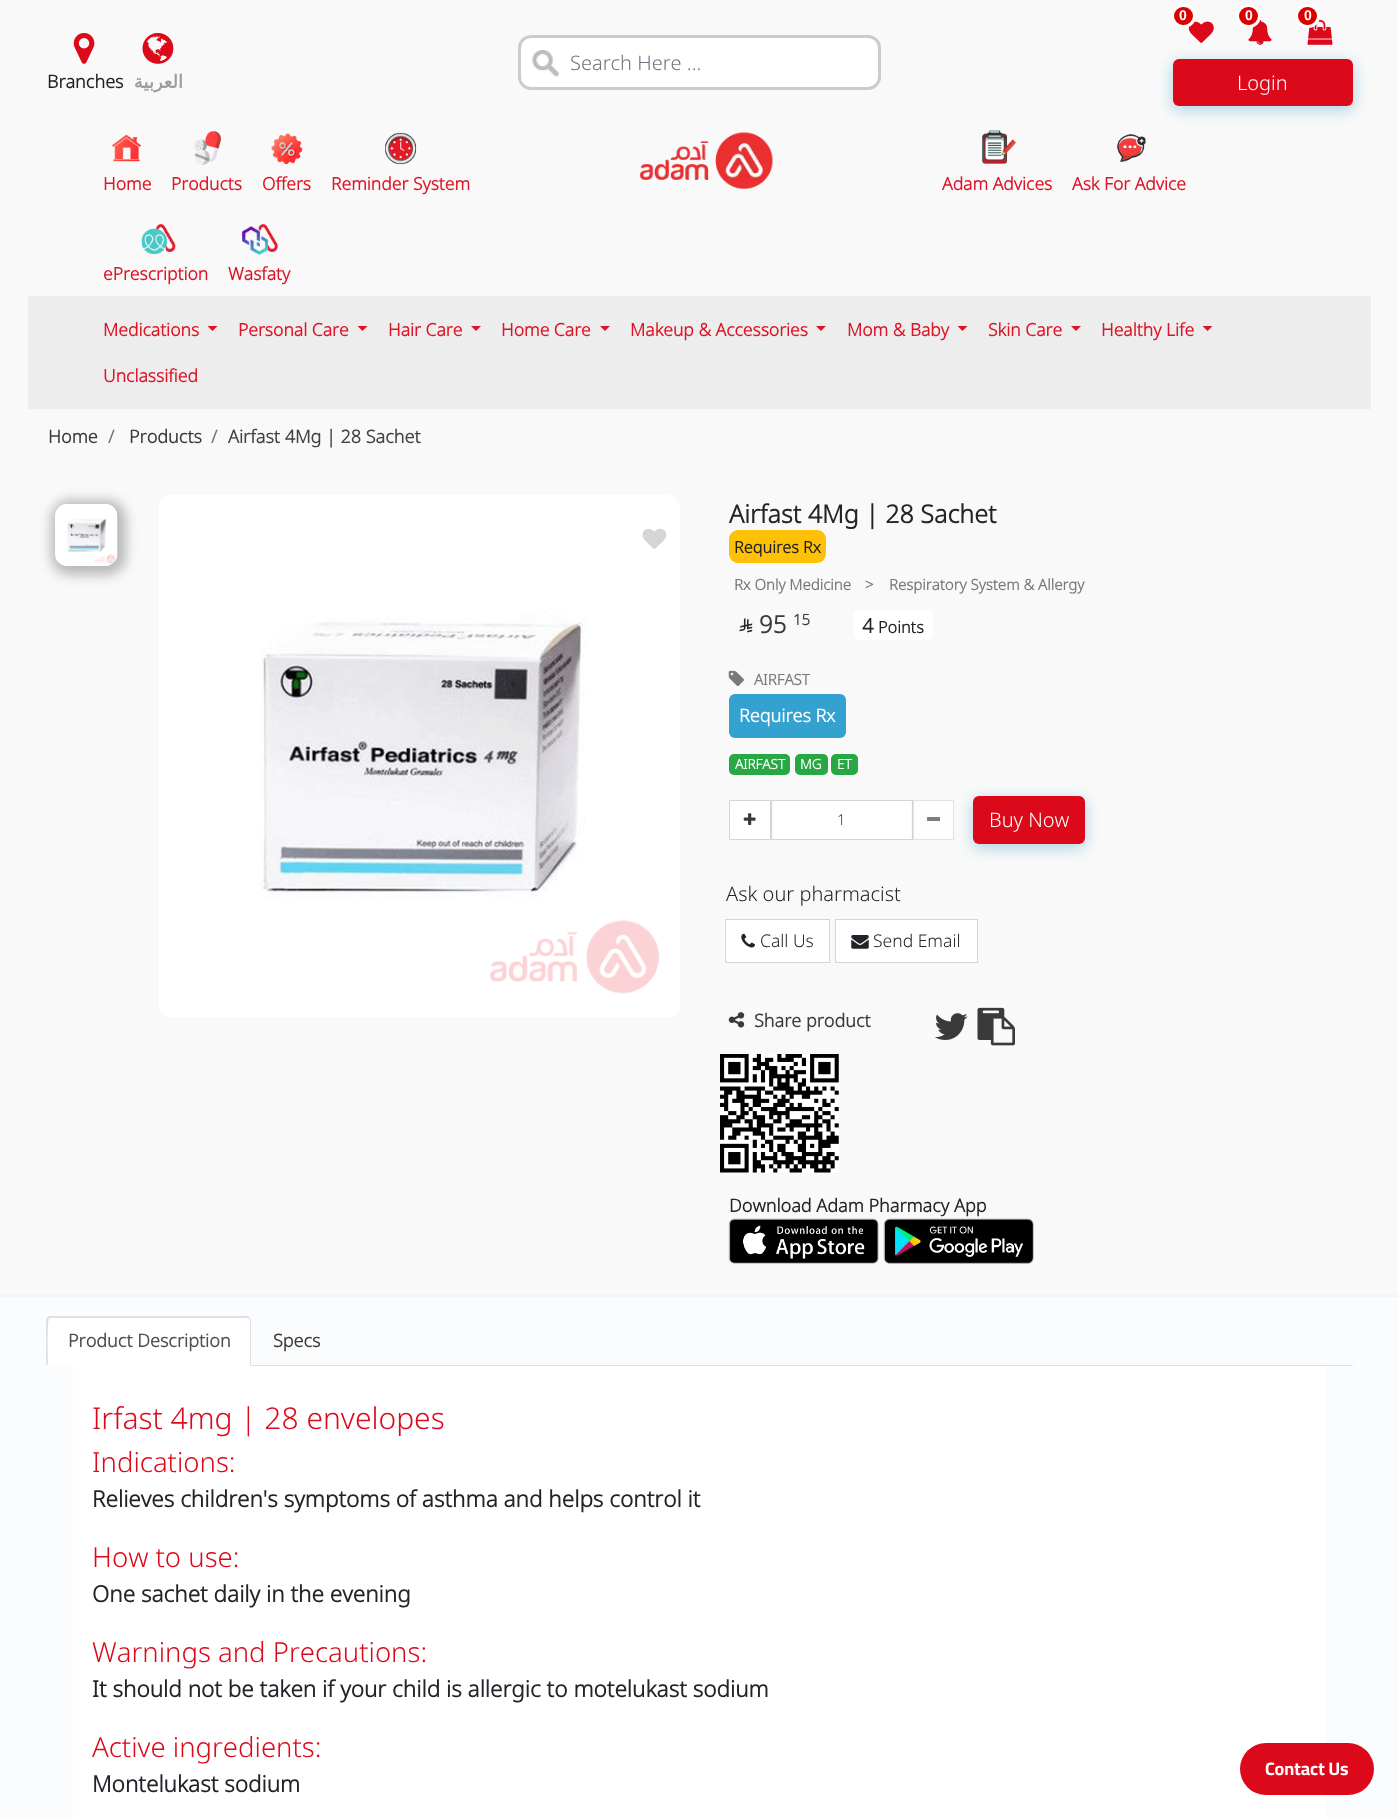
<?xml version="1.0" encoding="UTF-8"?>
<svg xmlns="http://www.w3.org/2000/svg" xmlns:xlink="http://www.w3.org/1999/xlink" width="1398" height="1819">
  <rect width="100%" height="100%" fill="#f9f9f9" />
  <rect x="520" y="38" width="359" height="50" rx="10" fill="#ffffff" />
  <image x="532" y="50" width="27" height="27" xlink:href="image1.png" />
  <rect x="519.5" y="36.5" width="360" height="52" rx="11.5" fill="none" stroke="#cccccc" stroke-width="3" />
  <image x="1188" y="21" width="26" height="22" xlink:href="image2.png" />
  <rect x="1172.5" y="5.5" width="22" height="21" rx="10.5" fill="#dd0000" stroke="#ffffff" stroke-width="3" />
  <image x="1248" y="19" width="24" height="26" xlink:href="image3.png" />
  <rect x="1237.5" y="5.5" width="22" height="21" rx="10.5" fill="#dd0000" stroke="#ffffff" stroke-width="3" />
  <image x="1307" y="19" width="26" height="26" xlink:href="image4.png" />
  <rect x="1296.5" y="5.5" width="22" height="21" rx="10.5" fill="#dd0000" stroke="#ffffff" stroke-width="3" />
  <rect x="1173" y="63" width="180" height="47" rx="6" fill="#2a92bd" fill-opacity="0.38" filter="blur(8px)" />
  <rect x="1173" y="59" width="180" height="47" rx="6" fill="#dc091b" />
  <image x="73" y="33" width="22" height="31" xlink:href="image5.png" />
  <image x="142" y="33" width="32" height="31" xlink:href="image6.png" />
  <image x="112" y="135" width="29" height="27" xlink:href="image7.png" />
  <image x="194" y="131" width="27" height="34" xlink:href="image8.png" />
  <image x="271" y="133" width="32" height="32" xlink:href="image9.png" />
  <image x="385" y="132" width="32" height="33" xlink:href="image10.png" />
  <image x="640" y="132" width="133" height="57" xlink:href="image11.png" />
  <image x="982" y="130" width="35" height="34" xlink:href="image12.png" />
  <image x="1117" y="134" width="29" height="28" xlink:href="image13.png" />
  <image x="141" y="224" width="35" height="31" xlink:href="image14.png" />
  <image x="242" y="224" width="36" height="31" xlink:href="image15.png" />
  <rect x="28" y="296" width="1343" height="113" fill="#ededed" />
  <path d="M 207.5 326 h 10 l -5 5 z" fill="#dd1426" />
  <path d="M 357.5 326 h 10 l -5 5 z" fill="#dd1426" />
  <path d="M 471 326 h 10 l -5 5 z" fill="#dd1426" />
  <path d="M 600 326 h 10 l -5 5 z" fill="#dd1426" />
  <path d="M 816 326 h 10 l -5 5 z" fill="#dd1426" />
  <path d="M 957.5 326 h 10 l -5 5 z" fill="#dd1426" />
  <path d="M 1071 326 h 10 l -5 5 z" fill="#dd1426" />
  <path d="M 1202.5 326 h 10 l -5 5 z" fill="#dd1426" />
  <rect x="51" y="500" width="75" height="75" rx="19" fill="#b8b8b8" filter="blur(6px)" />
  <image x="55" y="504" width="63" height="62" xlink:href="image16.png" />
  <image x="159" y="495" width="521" height="522" xlink:href="image17.png" />
  <image x="642" y="528" width="25" height="21" xlink:href="image18.png" />
  <rect x="729" y="530" width="97" height="33" rx="9" fill="#ffc107" />
  <image x="739" y="618" width="14" height="15" xlink:href="image19.png" />
  <rect x="854" y="610" width="79" height="30" rx="5" fill="#ffffff" />
  <image x="728" y="670" width="16" height="16" xlink:href="image20.png" />
  <rect x="729" y="694" width="117" height="44" rx="6" fill="#34a2d0" />
  <rect x="729" y="754" width="61" height="21" rx="5" fill="#28a745" />
  <rect x="795" y="754" width="33" height="21" rx="5" fill="#28a745" />
  <rect x="831" y="754" width="27" height="21" rx="5" fill="#28a745" />
  <rect x="729.5" y="800.5" width="41" height="39" fill="#ffffff" stroke="#d5d5d5" />
  <image x="743" y="813" width="13" height="12" xlink:href="image21.png" />
  <rect x="773" y="801" width="138" height="38" fill="#ffffff" />
  <rect x="771.5" y="800.5" width="141" height="39" fill="none" stroke="#d5d5d5" />
  <rect x="913.5" y="800.5" width="40" height="39" fill="#fdfdfd" stroke="#e2e2e2" />
  <rect x="927" y="817" width="13" height="4" fill="#7e7e7e" />
  <rect x="973" y="800" width="112" height="48" rx="6" fill="#2a92bd" fill-opacity="0.38" filter="blur(8px)" />
  <rect x="973" y="796" width="112" height="48" rx="6" fill="#dc091b" />
  <rect x="725.5" y="919.5" width="104" height="43" fill="#ffffff" stroke="#d5d5d5" />
  <image x="741" y="933" width="14" height="15" xlink:href="image22.png" />
  <rect x="835.5" y="919.5" width="142" height="43" fill="#ffffff" stroke="#d5d5d5" />
  <image x="851" y="935" width="18" height="14" xlink:href="image23.png" />
  <image x="728" y="1012" width="17" height="16" xlink:href="image24.png" />
  <image x="935" y="1013" width="33" height="27" xlink:href="image25.png" />
  <image x="977" y="1007" width="38" height="39" xlink:href="image26.png" />
  <image x="720" y="1054" width="119" height="119" xlink:href="image27.png" />
  <image x="728" y="1218" width="151" height="46" xlink:href="image28.png" />
  <image x="883" y="1218" width="151" height="46" xlink:href="image29.png" />
  <rect y="1297" width="1398" height="522" fill="#fbfcfd" />
  <rect y="1294" width="1398" height="3" fill="#f4f5f9" />
  <rect x="251" y="1365" width="1102" height="1" fill="#dee2e6" />
  <path d="M 51 1316 h 195 c 3 0 5 2 5 5 v 45 h -205 v -45 c 0 -3 2 -5 5 -5 z" fill="#ffffff" />
  <path d="M 51 1318 l -2 1 l -2 -2 l 2 -1 h 199 l 2 2 l -1 1 l -3 -1 z" fill="#dee2e6" />
  <path d="M 250 1318 c 1 0 1 2 1 3 v 45 l -1 -1 v -45 l -1 -1 z" fill="#dee2e6" />
  <path d="M 251 1366 l -1 -1 h -202 v -1 l -2 2 z" fill="#ffffff" />
  <path d="M 46 1319 l 1 -2 l 2 2 c -2 2 -1 40 -1 45 l -2 2 z" fill="#dee2e6" />
  <rect x="73" y="1366" width="1253" height="453" fill="#ffffff" />
  <rect x="1240" y="1743" width="134" height="52" rx="26" fill="#dc091b" />
  <text x="570" y="70" style="font-family: Noto Sans; font-size: 20px; font-weight: 300; fill: #6c757d">Search Here ...</text>
  <text x="1179" y="20" style="font-family: Liberation Sans; font-size: 14px; font-weight: bold; fill: #ffffff">0</text>
  <text x="1245" y="20" style="font-family: Liberation Sans; font-size: 14px; font-weight: bold; fill: #ffffff">0</text>
  <text x="1304" y="20" style="font-family: Liberation Sans; font-size: 14px; font-weight: bold; fill: #ffffff">0</text>
  <text x="1237" y="90" style="font-family: Noto Sans; font-size: 20px; font-weight: 300; fill: #ffffff">Login</text>
  <text x="47" y="88" style="font-family: Noto Sans; font-size: 18px; font-weight: bold; fill: #1f1f1f">Branches</text>
  <text x="183" y="88" style="font-family: DejaVu Sans; font-size: 18px; font-weight: bold; direction: rtl; fill: #9d9d9d">العربية</text>
  <text x="103" y="190" style="font-family: Noto Sans; font-size: 17.5px; font-weight: bold; fill: #dd1526">Home</text>
  <text x="171" y="190" style="font-family: Noto Sans; font-size: 17.5px; font-weight: bold; fill: #dd1526">Products</text>
  <text x="262" y="190" style="font-family: Noto Sans; font-size: 17.5px; font-weight: bold; fill: #dd1526">Offers</text>
  <text x="331" y="190" style="font-family: Noto Sans; font-size: 17.5px; font-weight: bold; fill: #dd1526">Reminder System</text>
  <text x="942" y="190" style="font-family: Noto Sans; font-size: 17.5px; font-weight: bold; fill: #dd1526">Adam Advices</text>
  <text x="1072" y="190" style="font-family: Noto Sans; font-size: 17.5px; font-weight: bold; fill: #dd1526">Ask For Advice</text>
  <text x="103" y="280" style="font-family: Noto Sans; font-size: 17.5px; font-weight: bold; fill: #dd1526">ePrescription</text>
  <text x="228" y="280" style="font-family: Noto Sans; font-size: 17.5px; font-weight: bold; fill: #dd1526">Wasfaty</text>
  <text x="103" y="336" style="font-family: Noto Sans; font-size: 17.5px; font-weight: bold; fill: #dd1526">Medications</text>
  <text x="238" y="336" style="font-family: Noto Sans; font-size: 17.5px; font-weight: bold; fill: #dd1526">Personal Care</text>
  <text x="388" y="336" style="font-family: Noto Sans; font-size: 17.5px; font-weight: bold; fill: #dd1526">Hair Care</text>
  <text x="501" y="336" style="font-family: Noto Sans; font-size: 17.5px; font-weight: bold; fill: #dd1526">Home Care</text>
  <text x="630" y="336" style="font-family: Noto Sans; font-size: 17.5px; font-weight: bold; fill: #dd1526">Makeup &amp; Accessories</text>
  <text x="847" y="336" style="font-family: Noto Sans; font-size: 17.5px; font-weight: bold; fill: #dd1526">Mom &amp; Baby</text>
  <text x="988" y="336" style="font-family: Noto Sans; font-size: 17.5px; font-weight: bold; fill: #dd1526">Skin Care</text>
  <text x="1101" y="336" style="font-family: Noto Sans; font-size: 17.5px; font-weight: bold; fill: #dd1526">Healthy Life</text>
  <text x="103" y="382" style="font-family: Noto Sans; font-size: 17.5px; font-weight: bold; fill: #dd1526">Unclassified</text>
  <text x="48" y="443" style="font-family: Noto Sans; font-size: 18px; font-weight: bold; fill: #3a3a3a">Home</text>
  <text x="108" y="443" style="font-family: Noto Sans; font-size: 18px; font-weight: bold; fill: #6c757d">/</text>
  <text x="129" y="443" style="font-family: Noto Sans; font-size: 18px; font-weight: bold; fill: #3a3a3a">Products</text>
  <text x="211" y="443" style="font-family: Noto Sans; font-size: 18px; font-weight: bold; fill: #6c757d">/</text>
  <text x="228" y="443" style="font-family: Noto Sans; font-size: 18px; font-weight: bold; fill: #414141">Airfast 4Mg | 28 Sachet</text>
  <text x="729" y="523" style="font-family: Noto Sans; font-size: 25px; font-weight: bold; fill: #212529">Airfast 4Mg | 28 Sachet</text>
  <text x="734" y="553" style="font-family: Noto Sans; font-size: 16.25px; font-weight: bold; fill: #1f1f1f">Requires Rx</text>
  <text x="734" y="590" style="font-family: Noto Sans; font-size: 15px; font-weight: bold; fill: #797979">Rx Only Medicine</text>
  <text x="865" y="590" style="font-family: Noto Sans; font-size: 15px; font-weight: bold; fill: #797979">&gt;</text>
  <text x="889" y="590" style="font-family: Noto Sans; font-size: 15px; font-weight: bold; fill: #797979">Respiratory System &amp; Allergy</text>
  <text x="759" y="633" style="font-family: Noto Sans; font-size: 24px; font-weight: bold; fill: #3a3a3a">95</text>
  <text x="793" y="625" style="font-family: Noto Sans; font-size: 15px; font-weight: bold; fill: #3a3a3a">15</text>
  <text x="862" y="633" style="font-family: Noto Sans; font-size: 20px; font-weight: bold; fill: #212529">4</text>
  <text x="878" y="633" style="font-family: Noto Sans; font-size: 16.25px; font-weight: bold; fill: #212529">Points</text>
  <text x="754" y="685" style="font-family: Noto Sans; font-size: 15px; font-weight: bold; fill: #797979">AIRFAST</text>
  <text x="739" y="722" style="font-family: Noto Sans; font-size: 18px; font-weight: bold; fill: #ffffff">Requires Rx</text>
  <text x="735" y="769" style="font-family: Noto Sans; font-size: 13.5px; font-weight: bold; fill: #ffffff">AIRFAST</text>
  <text x="800" y="769" style="font-family: Noto Sans; font-size: 13.5px; font-weight: bold; fill: #ffffff">MG</text>
  <text x="837" y="769" style="font-family: Noto Sans; font-size: 13.5px; font-weight: bold; fill: #ffffff">ET</text>
  <text x="837" y="825" style="font-family: Noto Sans; font-size: 15px; font-weight: 300; fill: #3a3a3a">1</text>
  <text x="989" y="827" style="font-family: Noto Sans; font-size: 20px; font-weight: 300; fill: #ffffff">Buy Now</text>
  <text x="726" y="901" style="font-family: Noto Sans; font-size: 20px; font-weight: 300; fill: #212529">Ask our pharmacist</text>
  <text x="760" y="947" style="font-family: Noto Sans; font-size: 17.5px; font-weight: 300; fill: #212529">Call Us</text>
  <text x="873" y="947" style="font-family: Noto Sans; font-size: 17.5px; font-weight: 300; fill: #212529">Send Email</text>
  <text x="754" y="1027" style="font-family: Noto Sans; font-size: 18px; font-weight: bold; fill: #3a3a3a">Share product</text>
  <text x="729" y="1212" style="font-family: Noto Sans; font-size: 18px; font-weight: bold; fill: #212529">Download Adam Pharmacy App</text>
  <text x="68" y="1347" style="font-family: Noto Sans; font-size: 18px; font-weight: bold; fill: #495057">Product Description</text>
  <text x="273" y="1347" style="font-family: Noto Sans; font-size: 18px; font-weight: bold; fill: #3a3a3a">Specs</text>
  <text x="92" y="1429" style="font-family: Noto Sans; font-size: 30px; font-weight: 300; fill: #dc091b">Irfast 4mg | 28 envelopes</text>
  <text x="92" y="1472" style="font-family: Noto Sans; font-size: 27.5px; font-weight: 300; fill: #dc091b">Indications:</text>
  <text x="92" y="1507" style="font-family: Noto Sans; font-size: 22.5px; font-weight: bold; fill: #212529">Relieves children's symptoms of asthma and helps control it</text>
  <text x="92" y="1567" style="font-family: Noto Sans; font-size: 27.5px; font-weight: 300; fill: #dc091b">How to use:</text>
  <text x="92" y="1602" style="font-family: Noto Sans; font-size: 22.5px; font-weight: bold; fill: #212529">One sachet daily in the evening</text>
  <text x="92" y="1662" style="font-family: Noto Sans; font-size: 27.5px; font-weight: 300; fill: #dc091b">Warnings and Precautions:</text>
  <text x="92" y="1697" style="font-family: Noto Sans; font-size: 22.5px; font-weight: bold; fill: #212529">It should not be taken if your child is allergic to motelukast sodium</text>
  <text x="92" y="1757" style="font-family: Noto Sans; font-size: 27.5px; font-weight: 300; fill: #dc091b">Active ingredients:</text>
  <text x="92" y="1792" style="font-family: Noto Sans; font-size: 22.5px; font-weight: bold; fill: #212529">Montelukast sodium</text>
  <text x="1265" y="1775" style="font-family: Cairo; font-size: 18px; font-weight: bold; fill: #ffffff">Contact Us</text>
</svg>
